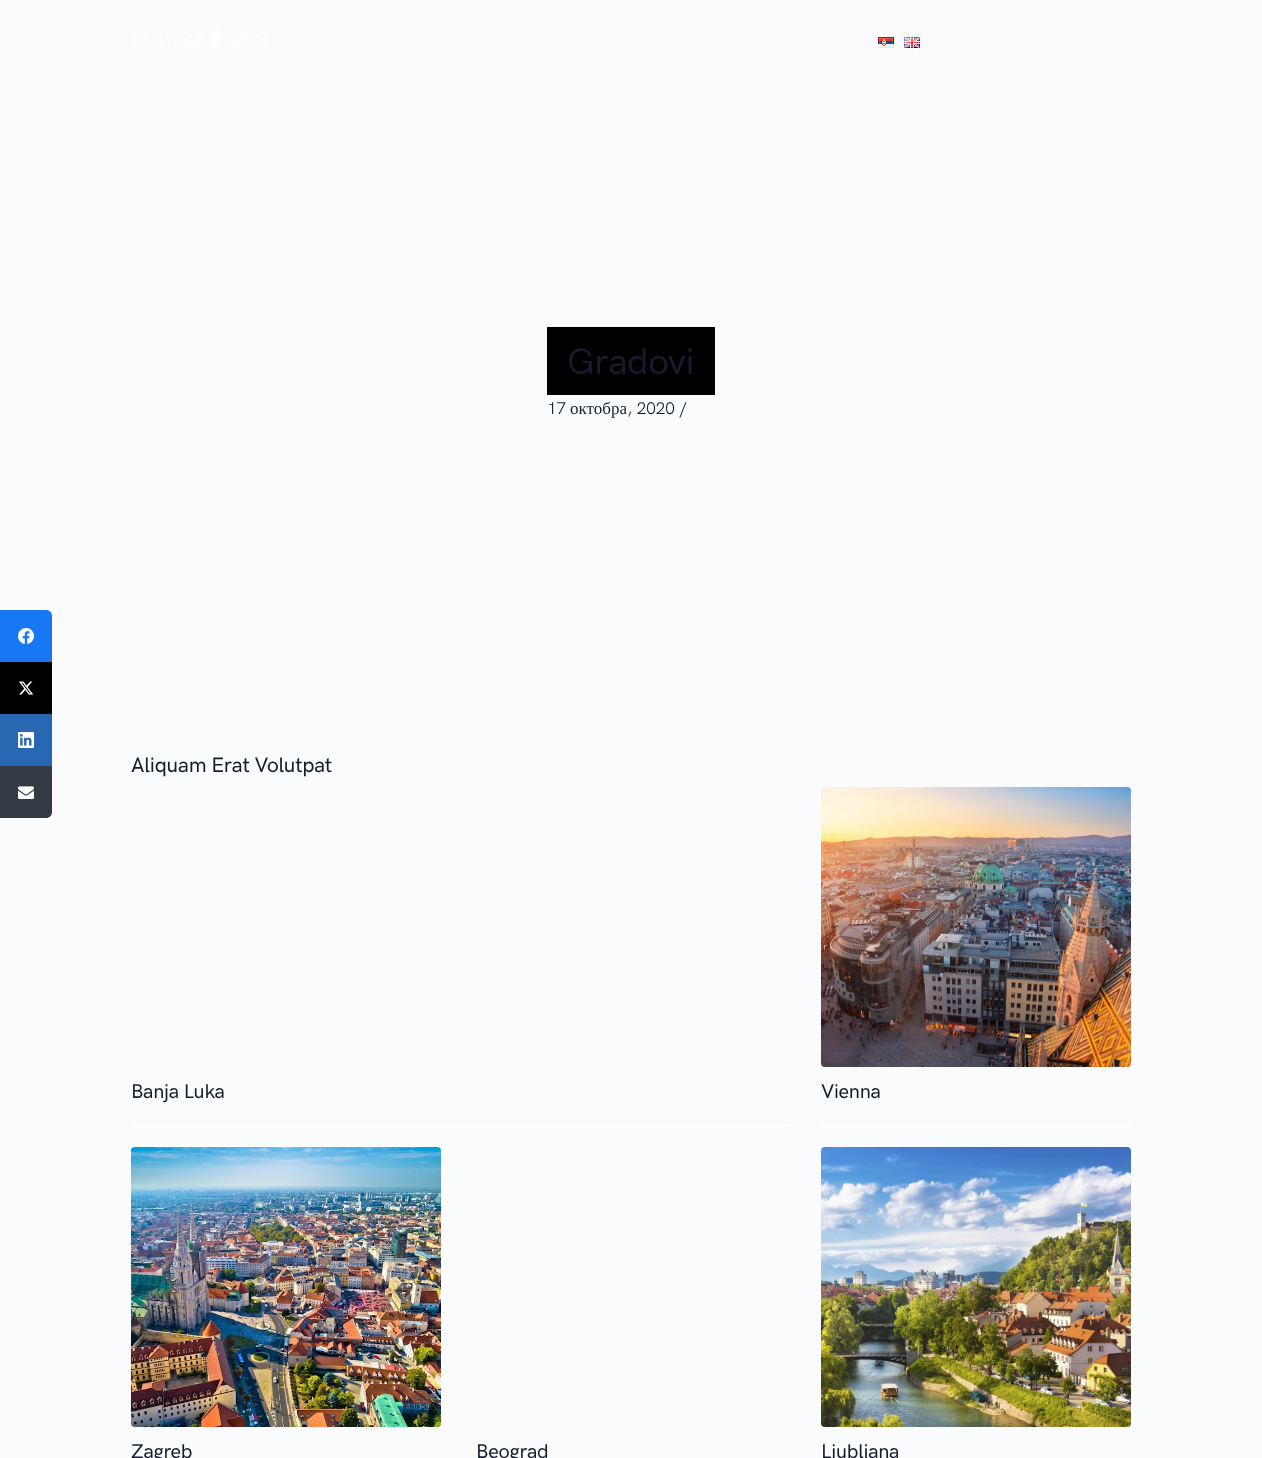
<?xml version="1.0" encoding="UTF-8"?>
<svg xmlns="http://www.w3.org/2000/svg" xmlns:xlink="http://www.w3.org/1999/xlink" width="1262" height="1458">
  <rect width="100%" height="100%" fill="#f9fbfd" />
  <image x="132" y="30" width="137" height="21" xlink:href="image1.png" />
  <image x="878" y="37" width="16" height="11" xlink:href="image2.png" />
  <image x="904" y="37" width="16" height="11" xlink:href="image3.png" />
  <rect x="547" y="327" width="168" height="68" fill="#000000" />
  <path d="M 0 610 h 46 c 3.5 0 6 2.5 6 6 v 46 h -52 z" fill="#1877f2" />
  <image x="18" y="628" width="16" height="16" xlink:href="image4.png" />
  <rect y="662" width="52" height="52" fill="#000000" />
  <image x="19" y="681" width="15" height="14" xlink:href="image5.png" />
  <rect y="714" width="52" height="52" fill="#2867b2" />
  <image x="18" y="732" width="16" height="16" xlink:href="image6.png" />
  <path d="M 0 766 h 52 v 46 c 0 3.5 -2.5 6 -6 6 h -46 z" fill="#323b43" />
  <image x="18" y="786" width="16" height="13" xlink:href="image7.png" />
  <rect x="131" y="1125" width="660" height="2" fill="#ffffff" />
  <rect x="821" y="1125" width="310" height="2" fill="#ffffff" />
  <image x="821" y="787" width="310" height="280" xlink:href="image8.png" />
  <image x="131" y="1147" width="310" height="280" xlink:href="image9.png" />
  <image x="821" y="1147" width="310" height="280" xlink:href="image10.png" />
  <text x="567" y="374" style="font-family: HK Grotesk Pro; font-size: 37px; font-weight: 500; letter-spacing: -0.5px; fill: #161c2d">Gradovi</text>
  <text x="547" y="414" style="font-family: HK Grotesk Pro; font-size: 17px; fill: #161c2d">17</text>
  <text x="570" y="414" style="font-family: Liberation Serif; font-size: 17px; fill: #161c2d">октобра</text>
  <text x="627" y="414" style="font-family: HK Grotesk Pro; font-size: 17px; fill: #161c2d">, 2020 /</text>
  <text x="131" y="772" style="font-family: HK Grotesk Pro; font-size: 21px; font-weight: 500; letter-spacing: -0.25px; fill: #161c2d">Aliquam Erat Volutpat</text>
  <text x="131" y="1098" style="font-family: HK Grotesk Pro; font-size: 20px; font-weight: 500; letter-spacing: -0.25px; fill: #161c2d">Banja Luka</text>
  <text x="821" y="1098" style="font-family: HK Grotesk Pro; font-size: 20px; font-weight: 500; letter-spacing: -0.25px; fill: #161c2d">Vienna</text>
  <text x="131" y="1458" style="font-family: HK Grotesk Pro; font-size: 20px; font-weight: 500; letter-spacing: -0.25px; fill: #161c2d">Zagreb</text>
  <text x="476" y="1458" style="font-family: HK Grotesk Pro; font-size: 20px; font-weight: 500; letter-spacing: -0.25px; fill: #161c2d">Beograd</text>
  <text x="821" y="1458" style="font-family: HK Grotesk Pro; font-size: 20px; font-weight: 500; letter-spacing: -0.25px; fill: #161c2d">Ljubljana</text>
</svg>
